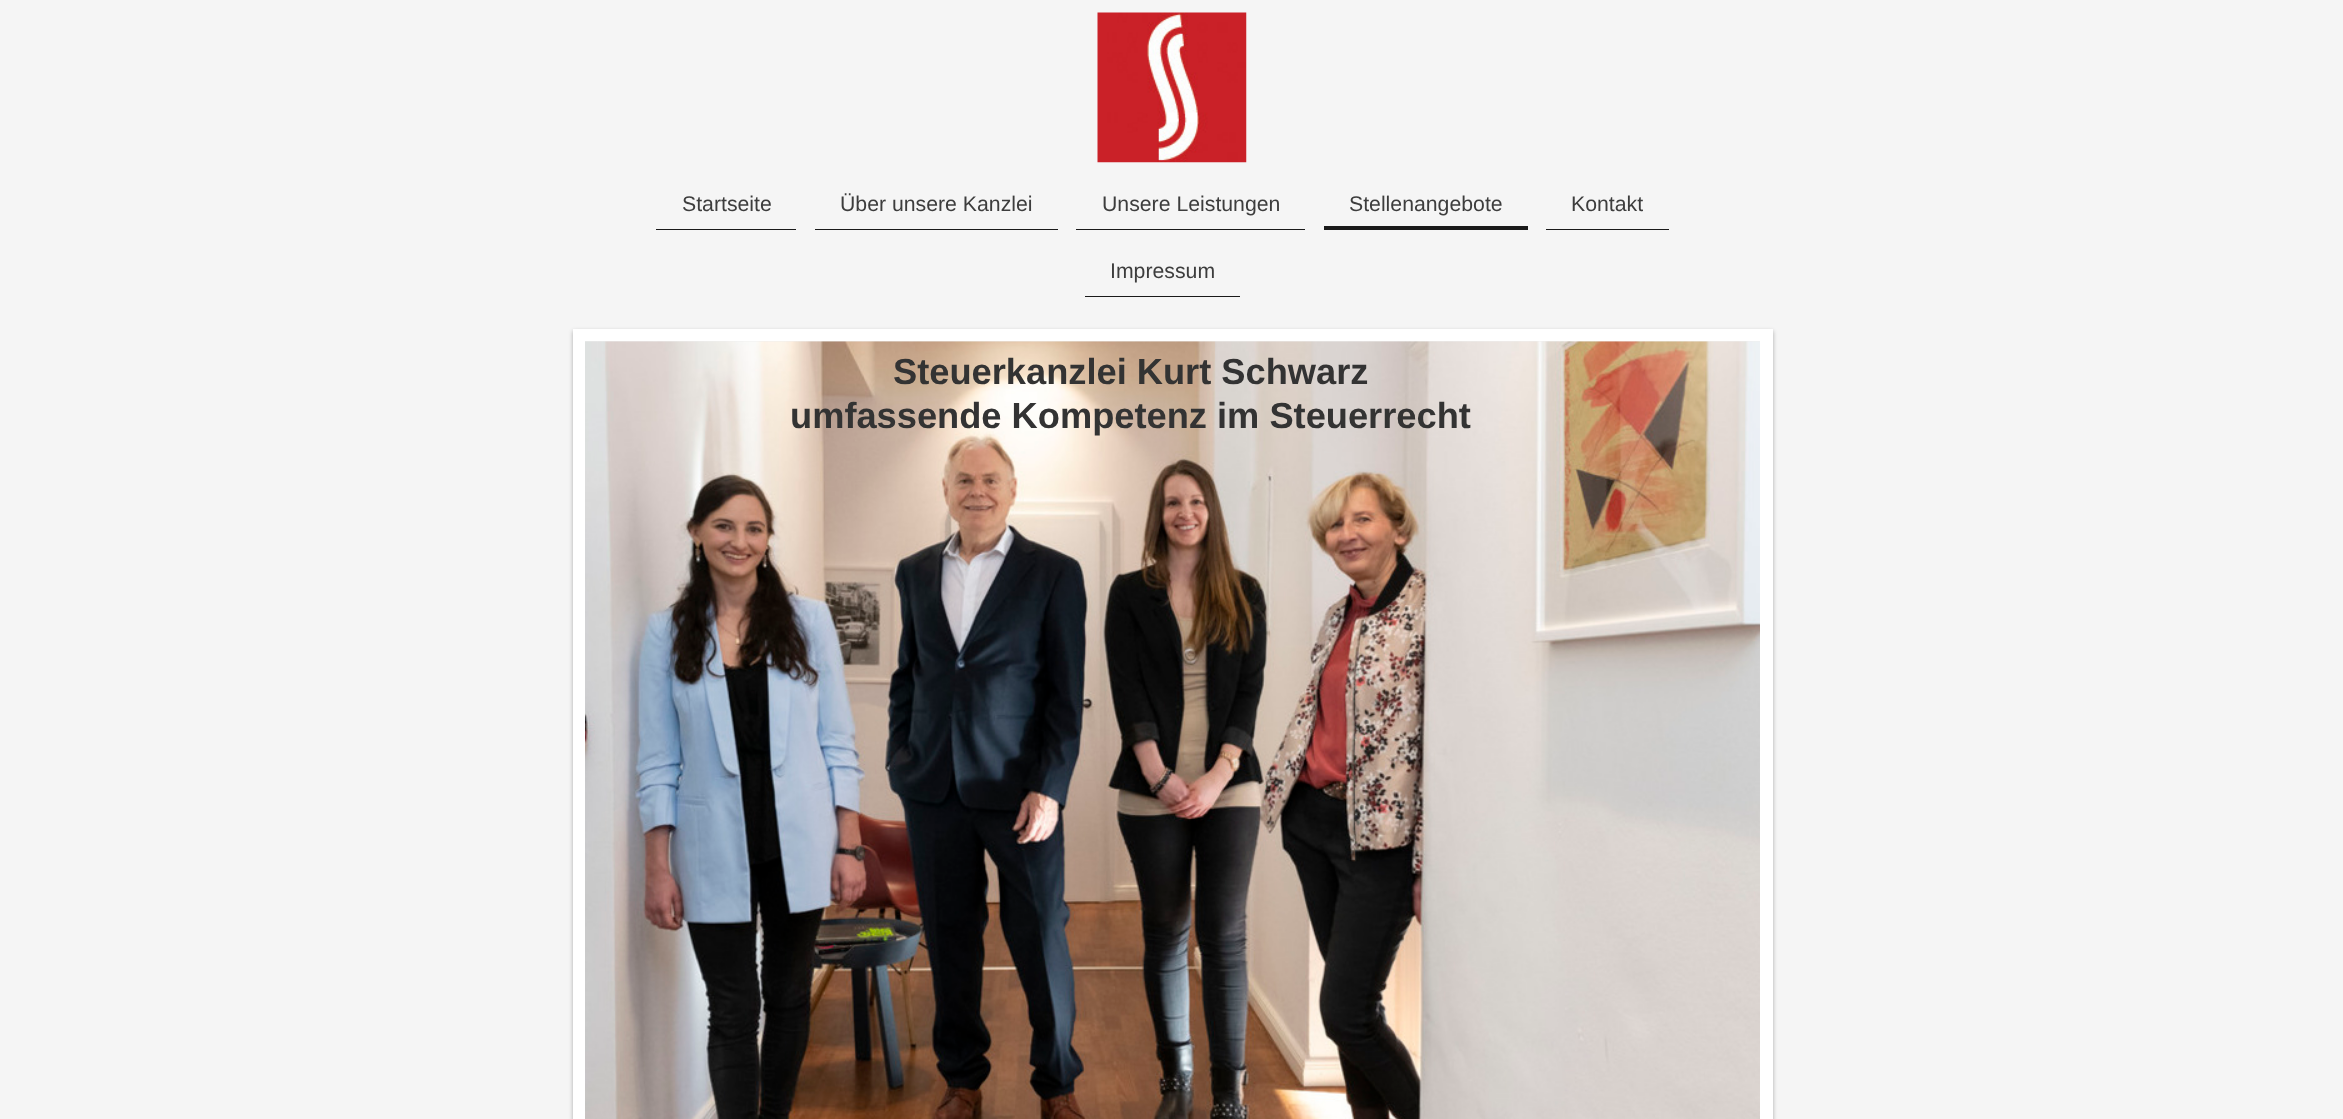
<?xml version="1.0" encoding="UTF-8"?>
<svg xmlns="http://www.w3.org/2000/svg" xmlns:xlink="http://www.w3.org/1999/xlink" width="2343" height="1119">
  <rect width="100%" height="100%" fill="#f5f5f5" />
  <image x="1097" y="12" width="150" height="151" xlink:href="image1.png" />
  <rect x="656" y="229" width="140" height="1" fill="#1a1a1a" />
  <rect x="815" y="229" width="243" height="1" fill="#1a1a1a" />
  <rect x="1076" y="229" width="229" height="1" fill="#1a1a1a" />
  <rect x="1324" y="226" width="204" height="4" fill="#1a1a1a" />
  <rect x="1546" y="229" width="123" height="1" fill="#1a1a1a" />
  <rect x="1085" y="296" width="155" height="1" fill="#1a1a1a" />
  <rect x="573" y="331" width="1200" height="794" fill="#000000" fill-opacity="0.3" filter="blur(2px)" />
  <rect x="579.5" y="335.5" width="1187" height="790" fill="none" stroke="#ffffff" stroke-width="13" />
  <rect x="585" y="341" width="1175" height="1" fill="#eeeeee" />
  <image x="585" y="341" width="1175" height="778" xlink:href="image2.png" />
  <text x="682" y="211" style="font-family: Liberation Sans; font-size: 21.25px; fill: #3d3d3d">Startseite</text>
  <text x="840" y="211" style="font-family: Liberation Sans; font-size: 21.25px; fill: #3d3d3d">Über unsere Kanzlei</text>
  <text x="1102" y="211" style="font-family: Liberation Sans; font-size: 21.25px; fill: #3d3d3d">Unsere Leistungen</text>
  <text x="1349" y="211" style="font-family: Liberation Sans; font-size: 21.25px; fill: #3d3d3d">Stellenangebote</text>
  <text x="1571" y="211" style="font-family: Liberation Sans; font-size: 21.25px; fill: #3d3d3d">Kontakt</text>
  <text x="1110" y="278" style="font-family: Liberation Sans; font-size: 21.25px; fill: #3d3d3d">Impressum</text>
  <text x="893" y="384" style="font-family: Liberation Sans; font-size: 36.25px; font-weight: bold; fill: #333333">Steuerkanzlei Kurt Schwarz</text>
  <text x="790" y="428" style="font-family: Liberation Sans; font-size: 36.25px; font-weight: bold; fill: #333333">umfassende Kompetenz im Steuerrecht</text>
</svg>
